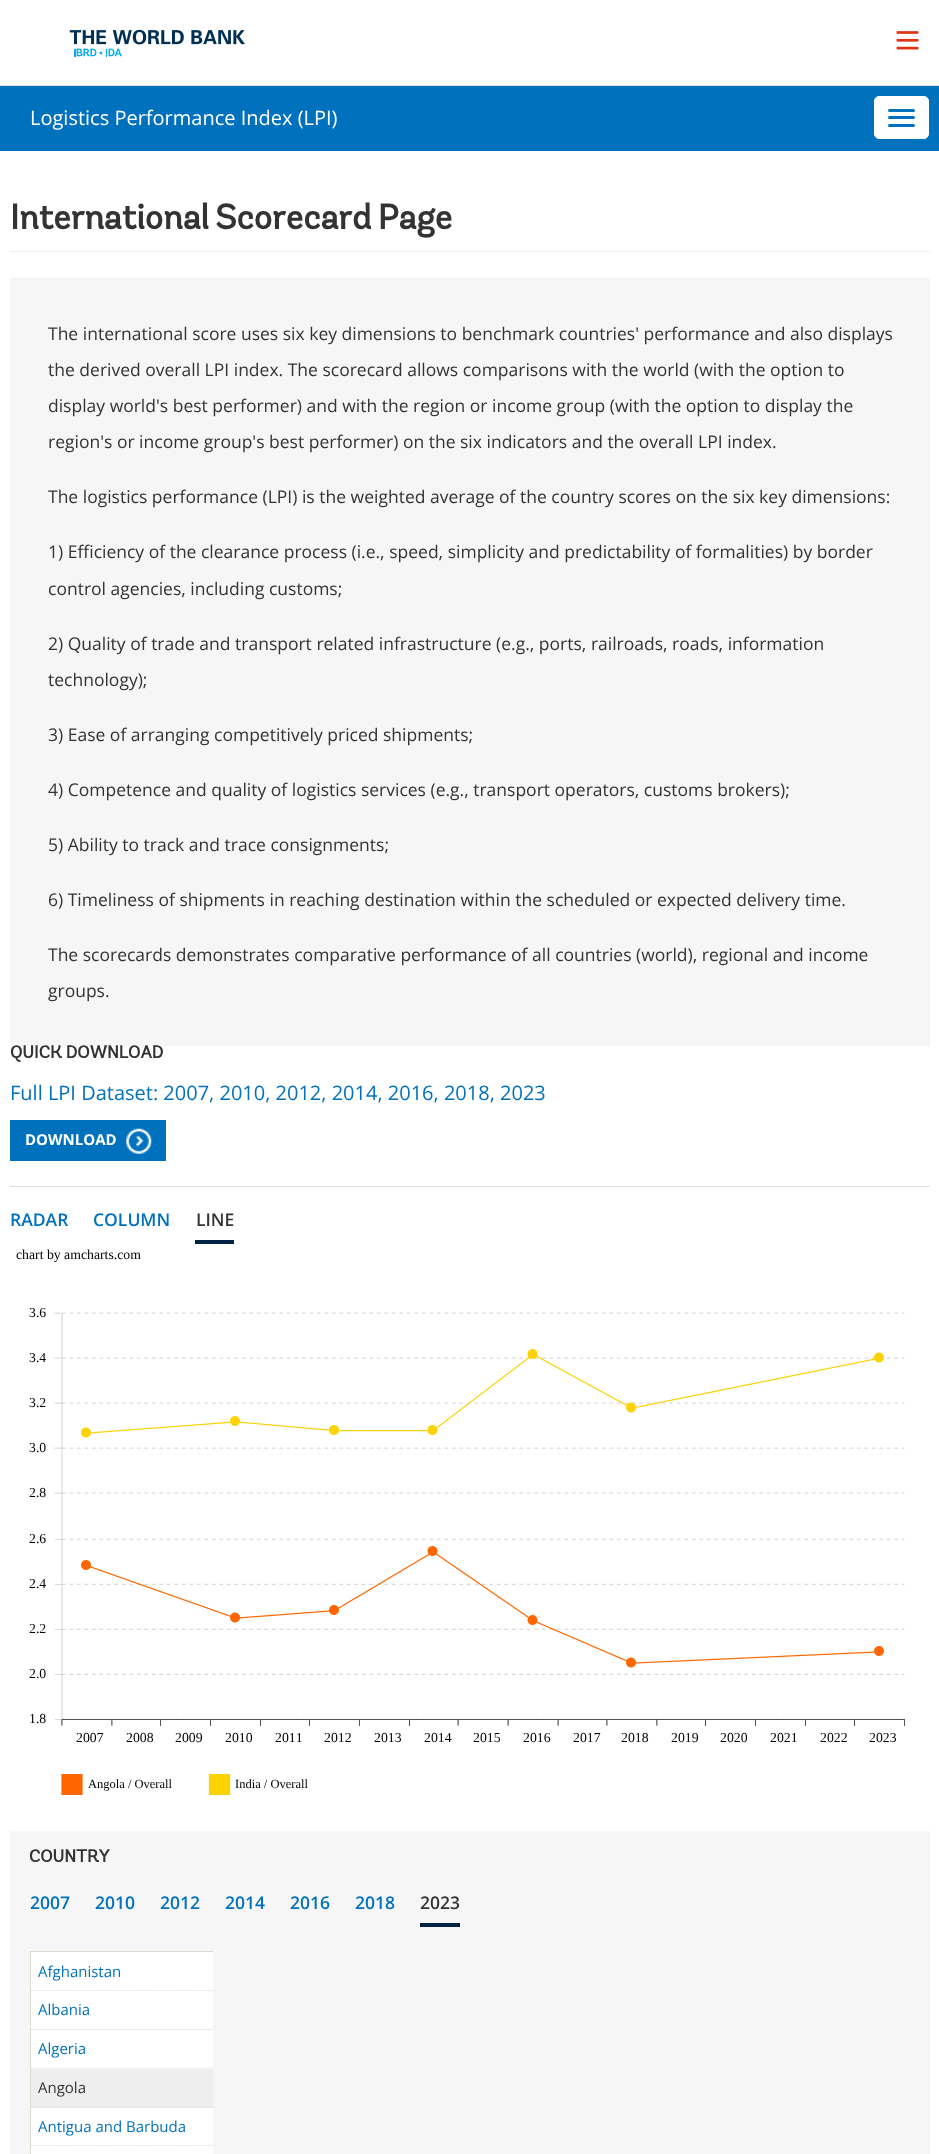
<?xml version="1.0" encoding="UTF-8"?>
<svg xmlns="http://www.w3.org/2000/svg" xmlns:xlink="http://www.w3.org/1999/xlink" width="939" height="2154">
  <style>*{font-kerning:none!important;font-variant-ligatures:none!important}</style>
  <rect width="100%" height="100%" fill="#ffffff" />
  <rect y="85" width="939" height="1" fill="#e5e5e5" />
  <image x="69" y="29" width="176" height="28" xlink:href="image1.png" />
  <image x="896" y="31" width="23" height="19" xlink:href="image2.png" />
  <rect y="86" width="939" height="65" fill="#0071bd" />
  <rect x="874.5" y="96.5" width="54" height="42" rx="4.5" fill="#ffffff" stroke="#ffffff" />
  <rect x="888" y="109" width="27" height="3" rx="1.5" fill="#0071bd" />
  <rect x="888" y="116" width="27" height="3" rx="1.5" fill="#0071bd" />
  <rect x="888" y="124" width="27" height="3" rx="1.5" fill="#0071bd" />
  <rect x="10" y="251" width="920" height="1" fill="#eeeeee" />
  <rect x="10" y="278" width="920" height="768" fill="#f6f6f6" />
  <rect x="10" y="1186" width="920" height="1" fill="#dedede" />
  <rect x="10" y="1120" width="156" height="41" fill="#0071bc" />
  <image x="126" y="1128" width="26" height="26" xlink:href="image3.png" />
  <rect x="195" y="1240" width="39" height="4" fill="#002245" />
  <image x="54" y="1312" width="851" height="414" xlink:href="image4.png" />
  <rect x="62" y="1775" width="20" height="19" fill="#ff6600" />
  <path d="M 62 1774.5 h 20 v 20 h -20 z" fill="none" stroke="#ff6600" stroke-width="1.2" />
  <rect x="210" y="1775" width="19" height="19" fill="#fcd202" />
  <path d="M 209.5 1774.5 h 20 v 20 h -20 z" fill="none" stroke="#fcd202" stroke-width="1.2" />
  <rect x="10" y="1831" width="920" height="323" fill="#f6f6f6" />
  <rect x="420" y="1923" width="40" height="4" fill="#002245" />
  <rect x="31" y="1952" width="182" height="202" fill="#ffffff" />
  <rect x="30" y="1951" width="183" height="1" fill="#dadccf" />
  <rect x="30" y="1951" width="1" height="203" fill="#dadccf" />
  <path d="M 31 1990.5 h 181.5" fill="none" stroke="#dadccf" stroke-width="1.2" stroke-dasharray="1.25 1.25" />
  <path d="M 31 2029.5 h 181.5" fill="none" stroke="#dadccf" stroke-width="1.2" stroke-dasharray="1.25 1.25" />
  <path d="M 31 2068 h 181.5" fill="none" stroke="#dadccf" stroke-width="1.2" stroke-dasharray="1.25 1.25" />
  <rect x="31" y="2069" width="182" height="39" fill="#eeeeee" />
  <path d="M 31 2107 h 181.5" fill="none" stroke="#dadccf" stroke-width="1.2" stroke-dasharray="1.25 1.25" />
  <path d="M 31 2145.5 h 181.5" fill="none" stroke="#dadccf" stroke-width="1.2" stroke-dasharray="1.25 1.25" />
  <text x="30" y="125" style="font-family: Open Sans; font-size: 20px; fill: #ffffff">Logistics Performance Index (LPI)</text>
  <text x="10" y="229" word-spacing="-2" style="font-family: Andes; font-size: 35px; font-weight: bold; fill: #333333">International Scorecard Page</text>
  <text x="48" y="340" style="font-family: Open Sans; font-size: 17.5px; fill: #333333">The international score uses six key dimensions to benchmark countries' performance and also displays</text>
  <text x="48" y="376" style="font-family: Open Sans; font-size: 17.5px; fill: #333333">the derived overall LPI index. The scorecard allows comparisons with the world (with the option to</text>
  <text x="48" y="412" style="font-family: Open Sans; font-size: 17.5px; fill: #333333">display world's best performer) and with the region or income group (with the option to display the</text>
  <text x="48" y="448" style="font-family: Open Sans; font-size: 17.5px; fill: #333333">region's or income group's best performer) on the six indicators and the overall LPI index.</text>
  <text x="48" y="503" style="font-family: Open Sans; font-size: 17.5px; fill: #333333">The logistics performance (LPI) is the weighted average of the country scores on the six key dimensions:</text>
  <text x="48" y="558" style="font-family: Open Sans; font-size: 17.5px; fill: #333333">1) Efficiency of the clearance process (i.e., speed, simplicity and predictability of formalities) by border</text>
  <text x="48" y="595" style="font-family: Open Sans; font-size: 17.5px; fill: #333333">control agencies, including customs;</text>
  <text x="48" y="650" style="font-family: Open Sans; font-size: 17.5px; fill: #333333">2) Quality of trade and transport related infrastructure (e.g., ports, railroads, roads, information</text>
  <text x="48" y="686" style="font-family: Open Sans; font-size: 17.5px; fill: #333333">technology);</text>
  <text x="48" y="741" style="font-family: Open Sans; font-size: 17.5px; fill: #333333">3) Ease of arranging competitively priced shipments;</text>
  <text x="48" y="796" style="font-family: Open Sans; font-size: 17.5px; fill: #333333">4) Competence and quality of logistics services (e.g., transport operators, customs brokers);</text>
  <text x="48" y="851" style="font-family: Open Sans; font-size: 17.5px; fill: #333333">5) Ability to track and trace consignments;</text>
  <text x="48" y="906" style="font-family: Open Sans; font-size: 17.5px; fill: #333333">6) Timeliness of shipments in reaching destination within the scheduled or expected delivery time.</text>
  <text x="48" y="961" style="font-family: Open Sans; font-size: 17.5px; fill: #333333">The scorecards demonstrates comparative performance of all countries (world), regional and income</text>
  <text x="48" y="997" style="font-family: Open Sans; font-size: 17.5px; fill: #333333">groups.</text>
  <text x="10" y="1058" style="font-family: Andes; font-size: 17.5px; font-weight: bold; fill: #333333">QUICK DOWNLOAD</text>
  <text x="10" y="1100" style="font-family: Open Sans; font-size: 20px; fill: #0071bc">Full LPI Dataset: 2007, 2010, 2012, 2014, 2016, 2018, 2023</text>
  <text x="25" y="1145" style="font-family: Open Sans; font-size: 15px; font-weight: bold; fill: #ffffff">DOWNLOAD</text>
  <text x="10" y="1226" style="font-family: Open Sans; font-size: 17.5px; font-weight: 600; fill: #0071bc">RADAR</text>
  <text x="93" y="1226" style="font-family: Open Sans; font-size: 17.5px; font-weight: 600; fill: #0071bc">COLUMN</text>
  <text x="196" y="1226" style="font-family: Open Sans; font-size: 17.5px; font-weight: 600; fill: #333333">LINE</text>
  <text x="16" y="1259" style="font-family: Liberation Serif; font-size: 13.75px; fill: #000000">chart by amcharts.com</text>
  <text x="29" y="1317" style="font-family: Liberation Serif; font-size: 13.75px; fill: #000000">3.6</text>
  <text x="29" y="1362" style="font-family: Liberation Serif; font-size: 13.75px; fill: #000000">3.4</text>
  <text x="29" y="1407" style="font-family: Liberation Serif; font-size: 13.75px; fill: #000000">3.2</text>
  <text x="29" y="1452" style="font-family: Liberation Serif; font-size: 13.75px; fill: #000000">3.0</text>
  <text x="29" y="1497" style="font-family: Liberation Serif; font-size: 13.75px; fill: #000000">2.8</text>
  <text x="29" y="1543" style="font-family: Liberation Serif; font-size: 13.75px; fill: #000000">2.6</text>
  <text x="29" y="1588" style="font-family: Liberation Serif; font-size: 13.75px; fill: #000000">2.4</text>
  <text x="29" y="1633" style="font-family: Liberation Serif; font-size: 13.75px; fill: #000000">2.2</text>
  <text x="29" y="1678" style="font-family: Liberation Serif; font-size: 13.75px; fill: #000000">2.0</text>
  <text x="29" y="1723" style="font-family: Liberation Serif; font-size: 13.75px; fill: #000000">1.8</text>
  <text x="76" y="1742" style="font-family: Liberation Serif; font-size: 13.75px; fill: #000000">2007</text>
  <text x="126" y="1742" style="font-family: Liberation Serif; font-size: 13.75px; fill: #000000">2008</text>
  <text x="175" y="1742" style="font-family: Liberation Serif; font-size: 13.75px; fill: #000000">2009</text>
  <text x="225" y="1742" style="font-family: Liberation Serif; font-size: 13.75px; fill: #000000">2010</text>
  <text x="275" y="1742" style="font-family: Liberation Serif; font-size: 13.75px; fill: #000000">2011</text>
  <text x="324" y="1742" style="font-family: Liberation Serif; font-size: 13.75px; fill: #000000">2012</text>
  <text x="374" y="1742" style="font-family: Liberation Serif; font-size: 13.75px; fill: #000000">2013</text>
  <text x="424" y="1742" style="font-family: Liberation Serif; font-size: 13.75px; fill: #000000">2014</text>
  <text x="473" y="1742" style="font-family: Liberation Serif; font-size: 13.75px; fill: #000000">2015</text>
  <text x="523" y="1742" style="font-family: Liberation Serif; font-size: 13.75px; fill: #000000">2016</text>
  <text x="573" y="1742" style="font-family: Liberation Serif; font-size: 13.75px; fill: #000000">2017</text>
  <text x="621" y="1742" style="font-family: Liberation Serif; font-size: 13.75px; fill: #000000">2018</text>
  <text x="671" y="1742" style="font-family: Liberation Serif; font-size: 13.75px; fill: #000000">2019</text>
  <text x="720" y="1742" style="font-family: Liberation Serif; font-size: 13.75px; fill: #000000">2020</text>
  <text x="770" y="1742" style="font-family: Liberation Serif; font-size: 13.75px; fill: #000000">2021</text>
  <text x="820" y="1742" style="font-family: Liberation Serif; font-size: 13.75px; fill: #000000">2022</text>
  <text x="869" y="1742" style="font-family: Liberation Serif; font-size: 13.75px; fill: #000000">2023</text>
  <text x="88" y="1788" style="font-family: Liberation Serif; font-size: 12.5px; fill: #000000">Angola / Overall</text>
  <text x="235" y="1788" style="font-family: Liberation Serif; font-size: 12.5px; fill: #000000">India / Overall</text>
  <text x="29" y="1862" style="font-family: Andes; font-size: 17.5px; font-weight: bold; fill: #333333">COUNTRY</text>
  <text x="30" y="1909" style="font-family: Open Sans; font-size: 17.5px; font-weight: 600; fill: #0071bc">2007</text>
  <text x="95" y="1909" style="font-family: Open Sans; font-size: 17.5px; font-weight: 600; fill: #0071bc">2010</text>
  <text x="160" y="1909" style="font-family: Open Sans; font-size: 17.5px; font-weight: 600; fill: #0071bc">2012</text>
  <text x="225" y="1909" style="font-family: Open Sans; font-size: 17.5px; font-weight: 600; fill: #0071bc">2014</text>
  <text x="290" y="1909" style="font-family: Open Sans; font-size: 17.5px; font-weight: 600; fill: #0071bc">2016</text>
  <text x="355" y="1909" style="font-family: Open Sans; font-size: 17.5px; font-weight: 600; fill: #0071bc">2018</text>
  <text x="420" y="1909" style="font-family: Open Sans; font-size: 17.5px; font-weight: 600; fill: #333333">2023</text>
  <text x="38" y="1977" style="font-family: Open Sans; font-size: 15px; fill: #0071bc">Afghanistan</text>
  <text x="38" y="2015" style="font-family: Open Sans; font-size: 15px; fill: #0071bc">Albania</text>
  <text x="38" y="2054" style="font-family: Open Sans; font-size: 15px; fill: #0071bc">Algeria</text>
  <text x="38" y="2093" style="font-family: Open Sans; font-size: 15px; fill: #333333">Angola</text>
  <text x="38" y="2132" style="font-family: Open Sans; font-size: 15px; fill: #0071bc">Antigua and Barbuda</text>
</svg>
